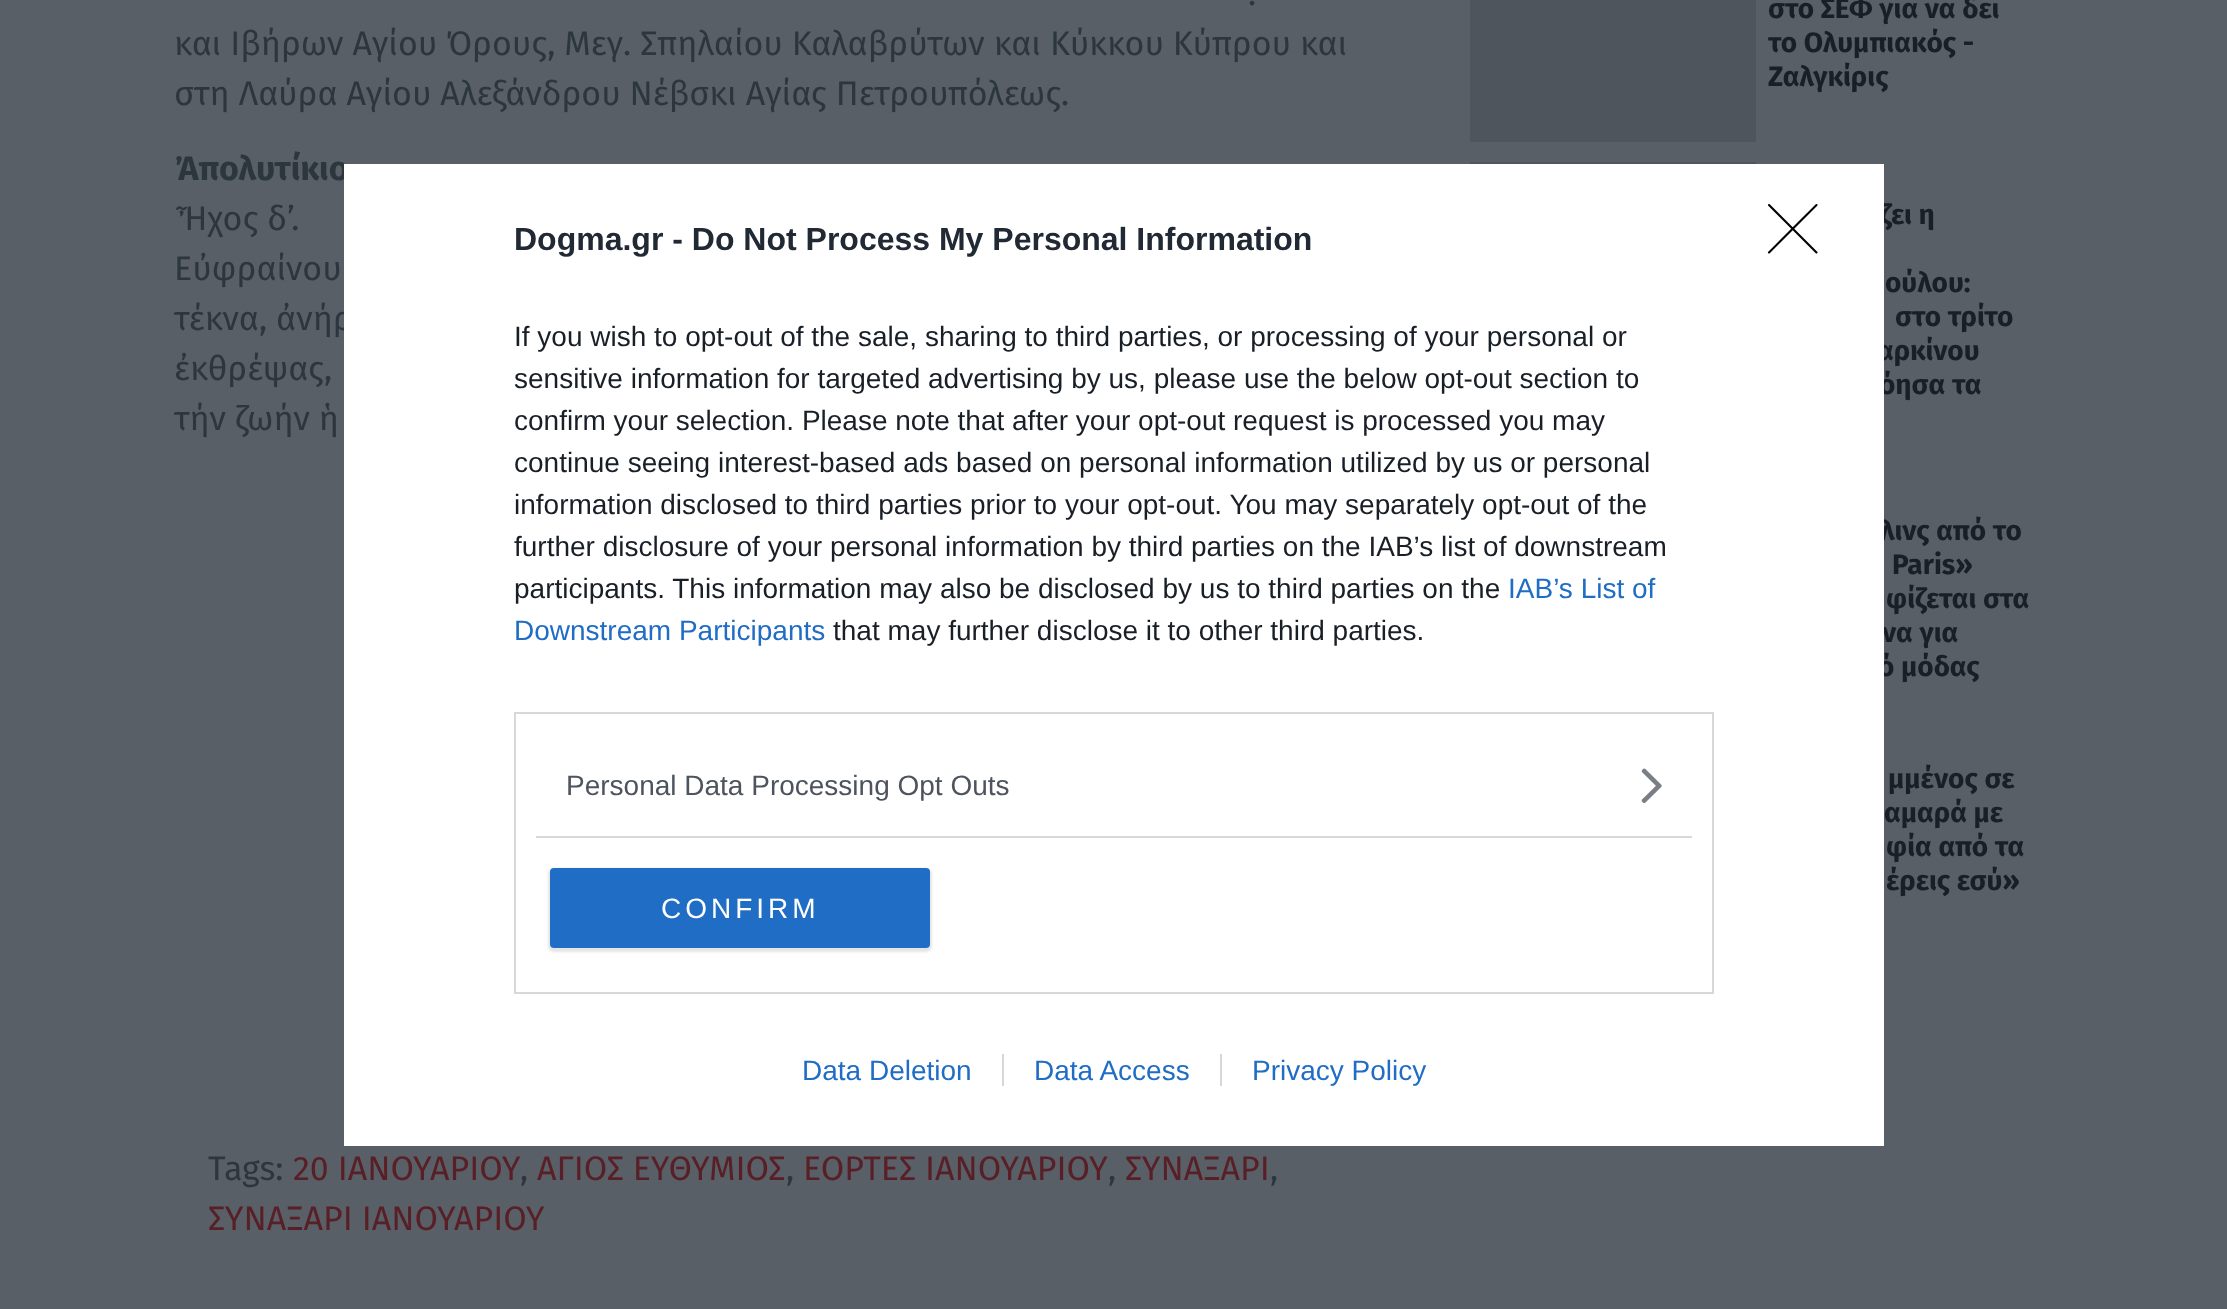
<?xml version="1.0" encoding="UTF-8"?>
<svg xmlns="http://www.w3.org/2000/svg" xmlns:xlink="http://www.w3.org/1999/xlink" width="2227" height="1309">
  <rect width="100%" height="100%" fill="#595f67" />
  <rect x="1470" width="286" height="142" fill="#4f555d" />
  <rect x="1470" y="162" width="286" height="2" fill="#4f555d" />
  <text x="1248" y="5" style="font-family: Fira Sans; font-size: 34px; fill: #2c363f">.</text>
  <text x="174" y="55" style="font-family: Fira Sans; font-size: 34px; fill: #2c363f">και Ιβήρων Αγίου Όρους, Μεγ. Σπηλαίου Καλαβρύτων και Κύκκου Κύπρου και</text>
  <text x="174" y="105" style="font-family: Fira Sans; font-size: 34px; fill: #2c363f">στη Λαύρα Αγίου Αλεξάνδρου Νέβσκι Αγίας Πετρουπόλεως.</text>
  <text x="174" y="180" style="font-family: Fira Sans; font-size: 34px; font-weight: bold; fill: #2c363f">Ἀπολυτίκιο</text>
  <text x="174" y="230" style="font-family: Fira Sans; font-size: 34px; fill: #2c363f">Ἦχος δ’.</text>
  <text x="174" y="280" style="font-family: Fira Sans; font-size: 34px; fill: #2c363f">Εὐφραίνου</text>
  <text x="174" y="330" style="font-family: Fira Sans; font-size: 34px; fill: #2c363f">τέκνα, ἀνήρ</text>
  <text x="174" y="380" style="font-family: Fira Sans; font-size: 34px; fill: #2c363f">ἐκθρέψας,</text>
  <text x="174" y="430" style="font-family: Fira Sans; font-size: 34px; fill: #2c363f">τήν ζωήν ἡ</text>
  <text x="208" y="1180" style="font-family: Fira Sans; font-size: 34px; fill: #2c363f">Tags:</text>
  <text x="293" y="1180" style="font-family: Fira Sans; font-size: 34px; fill: #591f27">20 ΙΑΝΟΥΑΡΙΟΥ</text>
  <text x="520" y="1180" style="font-family: Fira Sans; font-size: 34px; fill: #2c363f">,</text>
  <text x="537" y="1180" style="font-family: Fira Sans; font-size: 34px; fill: #591f27">ΑΓΙΟΣ ΕΥΘΥΜΙΟΣ</text>
  <text x="786" y="1180" style="font-family: Fira Sans; font-size: 34px; fill: #2c363f">,</text>
  <text x="803" y="1180" style="font-family: Fira Sans; font-size: 34px; fill: #591f27">ΕΟΡΤΕΣ ΙΑΝΟΥΑΡΙΟΥ</text>
  <text x="1108" y="1180" style="font-family: Fira Sans; font-size: 34px; fill: #2c363f">,</text>
  <text x="1125" y="1180" style="font-family: Fira Sans; font-size: 34px; fill: #591f27">ΣΥΝΑΞΑΡΙ</text>
  <text x="1270" y="1180" style="font-family: Fira Sans; font-size: 34px; fill: #2c363f">,</text>
  <text x="208" y="1230" style="font-family: Fira Sans; font-size: 34px; fill: #591f27">ΣΥΝΑΞΑΡΙ ΙΑΝΟΥΑΡΙΟΥ</text>
  <text x="1768" y="18" style="font-family: Fira Sans; font-size: 28px; font-weight: bold; fill: #191f27">στο ΣΕΦ για να δει</text>
  <text x="1768" y="52" style="font-family: Fira Sans; font-size: 28px; font-weight: bold; fill: #191f27">το Ολυμπιακός -</text>
  <text x="1768" y="86" style="font-family: Fira Sans; font-size: 28px; font-weight: bold; fill: #191f27">Ζαλγκίρις</text>
  <text x="1880" y="224" style="font-family: Fira Sans; font-size: 28px; font-weight: bold; fill: #191f27">ζει η</text>
  <text x="1885" y="292" style="font-family: Fira Sans; font-size: 28px; font-weight: bold; fill: #191f27">ούλου:</text>
  <text x="1895" y="326" style="font-family: Fira Sans; font-size: 28px; font-weight: bold; fill: #191f27">στο τρίτο</text>
  <text x="1877" y="360" style="font-family: Fira Sans; font-size: 28px; font-weight: bold; fill: #191f27">αρκίνου</text>
  <text x="1879" y="394" style="font-family: Fira Sans; font-size: 28px; font-weight: bold; fill: #191f27">όησα τα</text>
  <text x="1880" y="540" style="font-family: Fira Sans; font-size: 28px; font-weight: bold; fill: #191f27">λινς από το</text>
  <text x="1892" y="574" style="font-family: Fira Sans; font-size: 28px; font-weight: bold; fill: #191f27">Paris»</text>
  <text x="1886" y="608" style="font-family: Fira Sans; font-size: 28px; font-weight: bold; fill: #191f27">φίζεται στα</text>
  <text x="1882" y="642" style="font-family: Fira Sans; font-size: 28px; font-weight: bold; fill: #191f27">να για</text>
  <text x="1878" y="676" style="font-family: Fira Sans; font-size: 28px; font-weight: bold; fill: #191f27">ό μόδας</text>
  <text x="1888" y="788" style="font-family: Fira Sans; font-size: 28px; font-weight: bold; fill: #191f27">μμένος σε</text>
  <text x="1884" y="822" style="font-family: Fira Sans; font-size: 28px; font-weight: bold; fill: #191f27">αμαρά με</text>
  <text x="1886" y="856" style="font-family: Fira Sans; font-size: 28px; font-weight: bold; fill: #191f27">φία από τα</text>
  <text x="1886" y="890" style="font-family: Fira Sans; font-size: 28px; font-weight: bold; fill: #191f27">έρεις εσύ»</text>
  <rect x="344" y="164" width="1540" height="982" fill="#ffffff" />
  <text x="514" y="250" style="font-family: Liberation Sans; font-size: 32px; font-weight: bold; fill: #212934">Dogma.gr - Do Not Process My Personal Information</text>
  <text x="514" y="346" style="font-family: Liberation Sans; font-size: 28px; fill: #191f27">If you wish to opt-out of the sale, sharing to third parties, or processing of your personal or</text>
  <text x="514" y="388" style="font-family: Liberation Sans; font-size: 28px; fill: #191f27">sensitive information for targeted advertising by us, please use the below opt-out section to</text>
  <text x="514" y="430" style="font-family: Liberation Sans; font-size: 28px; fill: #191f27">confirm your selection. Please note that after your opt-out request is processed you may</text>
  <text x="514" y="472" style="font-family: Liberation Sans; font-size: 28px; fill: #191f27">continue seeing interest-based ads based on personal information utilized by us or personal</text>
  <text x="514" y="514" style="font-family: Liberation Sans; font-size: 28px; fill: #191f27">information disclosed to third parties prior to your opt-out. You may separately opt-out of the</text>
  <text x="514" y="556" style="font-family: Liberation Sans; font-size: 28px; fill: #191f27">further disclosure of your personal information by third parties on the IAB’s list of downstream</text>
  <text x="514" y="598" style="font-family: Liberation Sans; font-size: 28px; fill: #191f27">participants. This information may also be disclosed by us to third parties on the</text>
  <text x="1508" y="598" style="font-family: Liberation Sans; font-size: 28px; fill: #206dc5">IAB’s List of</text>
  <text x="514" y="640" style="font-family: Liberation Sans; font-size: 28px; fill: #206dc5">Downstream Participants</text>
  <text x="833" y="640" style="font-family: Liberation Sans; font-size: 28px; fill: #191f27">that may further disclose it to other third parties.</text>
  <rect x="515" y="713" width="1198" height="280" fill="none" stroke="#d8d8d8" stroke-width="2" />
  <rect x="536" y="836" width="1156" height="2" fill="#d8d8d8" />
  <text x="566" y="795" style="font-family: Liberation Sans; font-size: 28px; fill: #4d545d">Personal Data Processing Opt Outs</text>
  <image x="1641" y="768" width="21" height="36" xlink:href="image1.png" />
  <rect x="548" y="868" width="384" height="84" rx="6" fill="#000000" fill-opacity="0.1" filter="blur(1px)" />
  <rect x="550" y="868" width="380" height="80" rx="4" fill="#206dc5" />
  <text x="661" y="918" style="font-family: Liberation Sans; font-size: 28px; letter-spacing: 4px; fill: #ffffff">CONFIRM</text>
  <path d="M 1769 205 l 47.5 47.5 m 0 -47.5 l -47.5 47.5" fill="none" stroke="#000000" stroke-width="2.1" stroke-linecap="round" stroke-linejoin="round" />
  <text x="802" y="1080" style="font-family: Liberation Sans; font-size: 28px; fill: #206dc5">Data Deletion</text>
  <text x="1034" y="1080" style="font-family: Liberation Sans; font-size: 28px; fill: #206dc5">Data Access</text>
  <rect x="1002" y="1054" width="2" height="32" fill="#d8d8d8" />
  <text x="1252" y="1080" style="font-family: Liberation Sans; font-size: 28px; fill: #206dc5">Privacy Policy</text>
  <rect x="1220" y="1054" width="2" height="32" fill="#d8d8d8" />
</svg>
